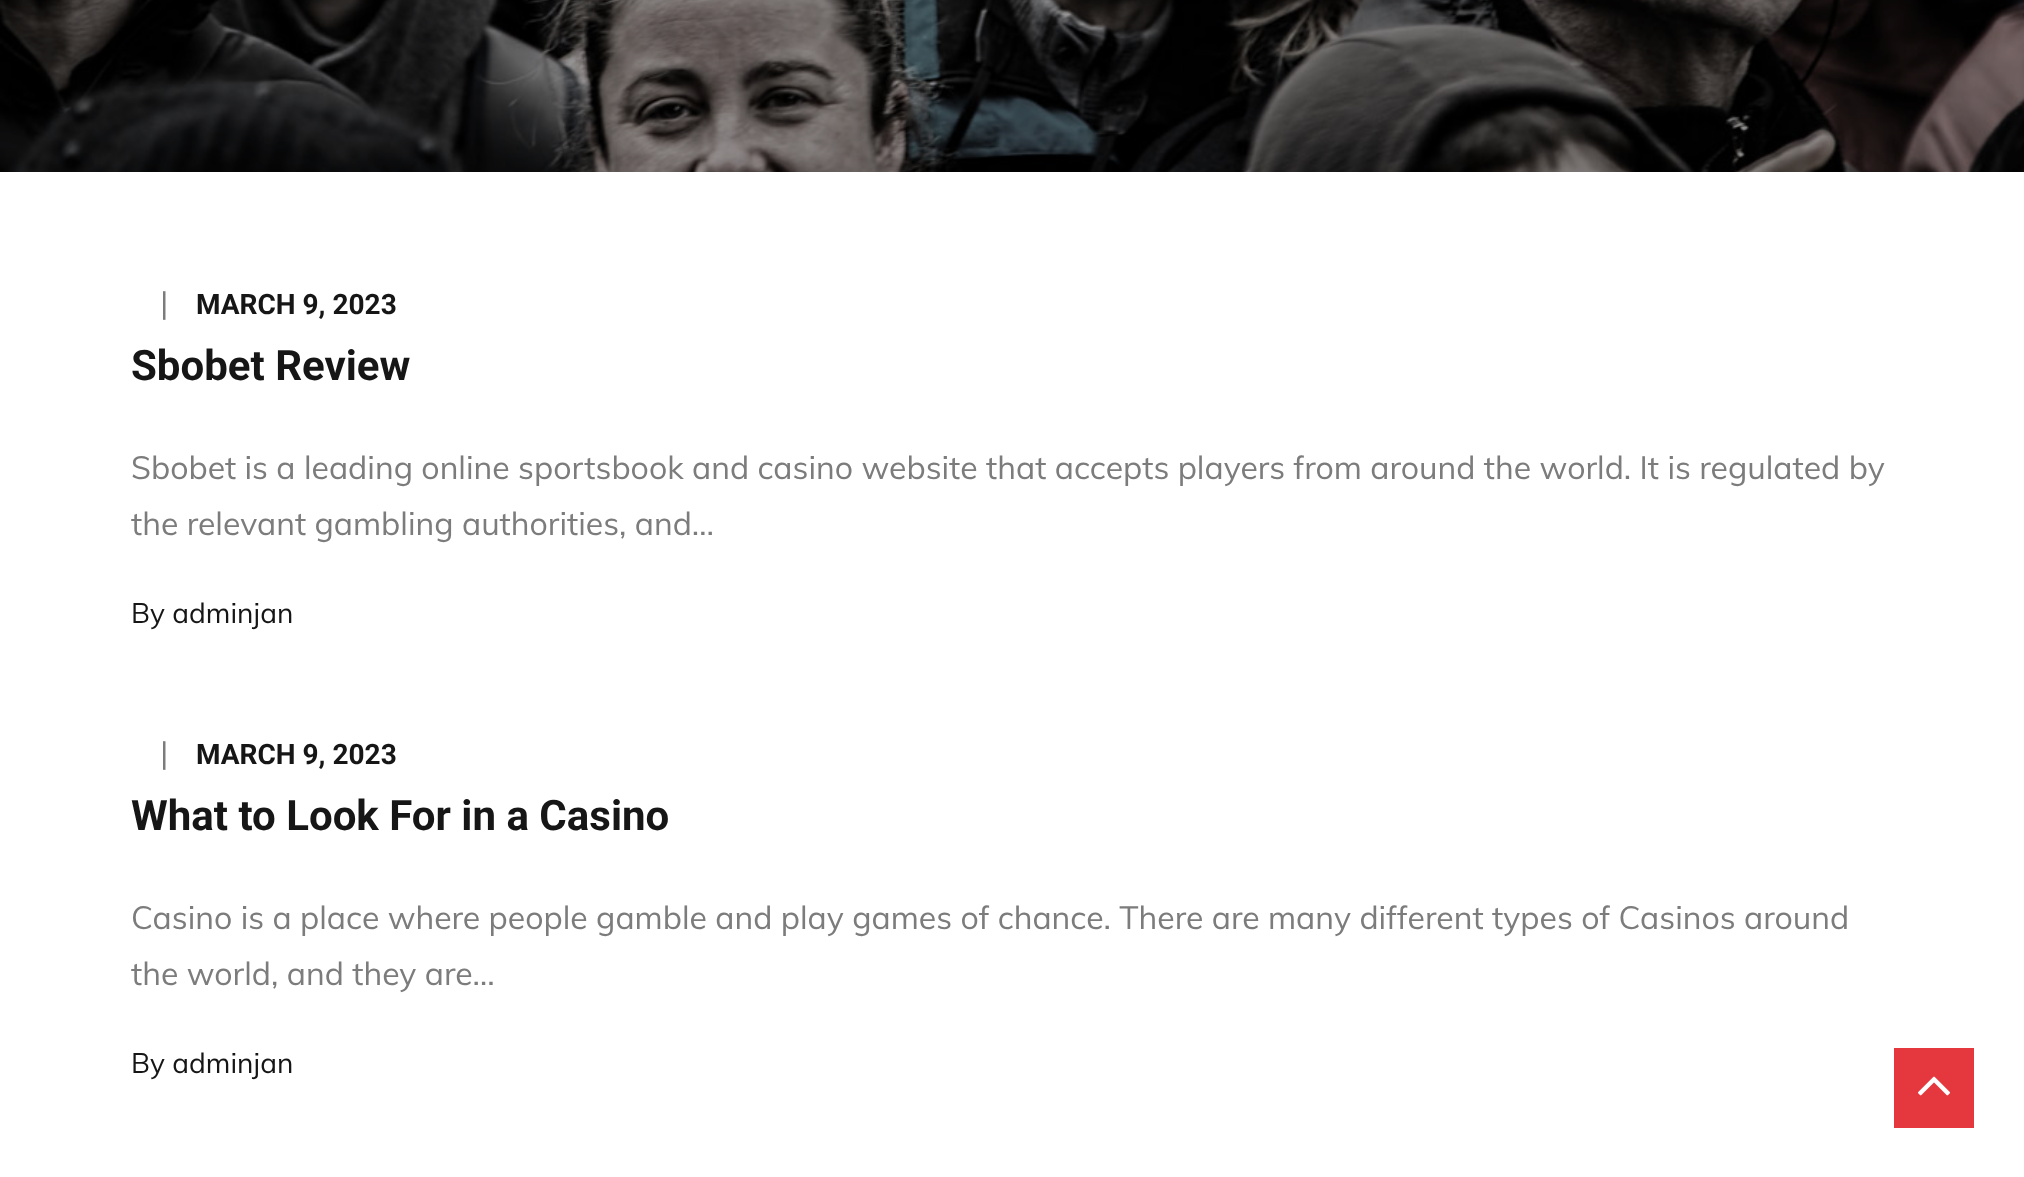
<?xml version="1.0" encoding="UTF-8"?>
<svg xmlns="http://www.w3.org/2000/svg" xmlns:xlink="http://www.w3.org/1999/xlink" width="2024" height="1177">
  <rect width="100%" height="100%" fill="#ffffff" />
  <image x="0" y="0" width="2024" height="172" xlink:href="image1.png" />
  <rect x="1894" y="1048" width="80" height="80" fill="#e5383e" />
  <image x="1918" y="1076" width="32" height="20" xlink:href="image2.png" />
  <text x="160" y="314" style="font-family: Muli; font-size: 32px; fill: #7c7c7c">|</text>
  <text x="196" y="314" style="font-family: Roboto; font-size: 28px; font-weight: bold; fill: #171616">MARCH 9, 2023</text>
  <text x="131" y="380" style="font-family: Roboto; font-size: 42px; font-weight: bold; fill: #171616">Sbobet Review</text>
  <text x="131" y="479" style="font-family: Muli; font-size: 32px; fill: #7c7c7c">Sbobet is a leading online sportsbook and casino website that accepts players from around the world. It is regulated by</text>
  <text x="131" y="535" style="font-family: Muli; font-size: 32px; fill: #7c7c7c">the relevant gambling authorities, and…</text>
  <text x="131" y="623" style="font-family: Muli; font-size: 28px; fill: #171616">By adminjan</text>
  <text x="160" y="764" style="font-family: Muli; font-size: 32px; fill: #7c7c7c">|</text>
  <text x="196" y="764" style="font-family: Roboto; font-size: 28px; font-weight: bold; fill: #171616">MARCH 9, 2023</text>
  <text x="131" y="830" style="font-family: Roboto; font-size: 42px; font-weight: bold; fill: #171616">What to Look For in a Casino</text>
  <text x="131" y="929" style="font-family: Muli; font-size: 32px; fill: #7c7c7c">Casino is a place where people gamble and play games of chance. There are many different types of Casinos around</text>
  <text x="131" y="985" style="font-family: Muli; font-size: 32px; fill: #7c7c7c">the world, and they are…</text>
  <text x="131" y="1073" style="font-family: Muli; font-size: 28px; fill: #171616">By adminjan</text>
</svg>
